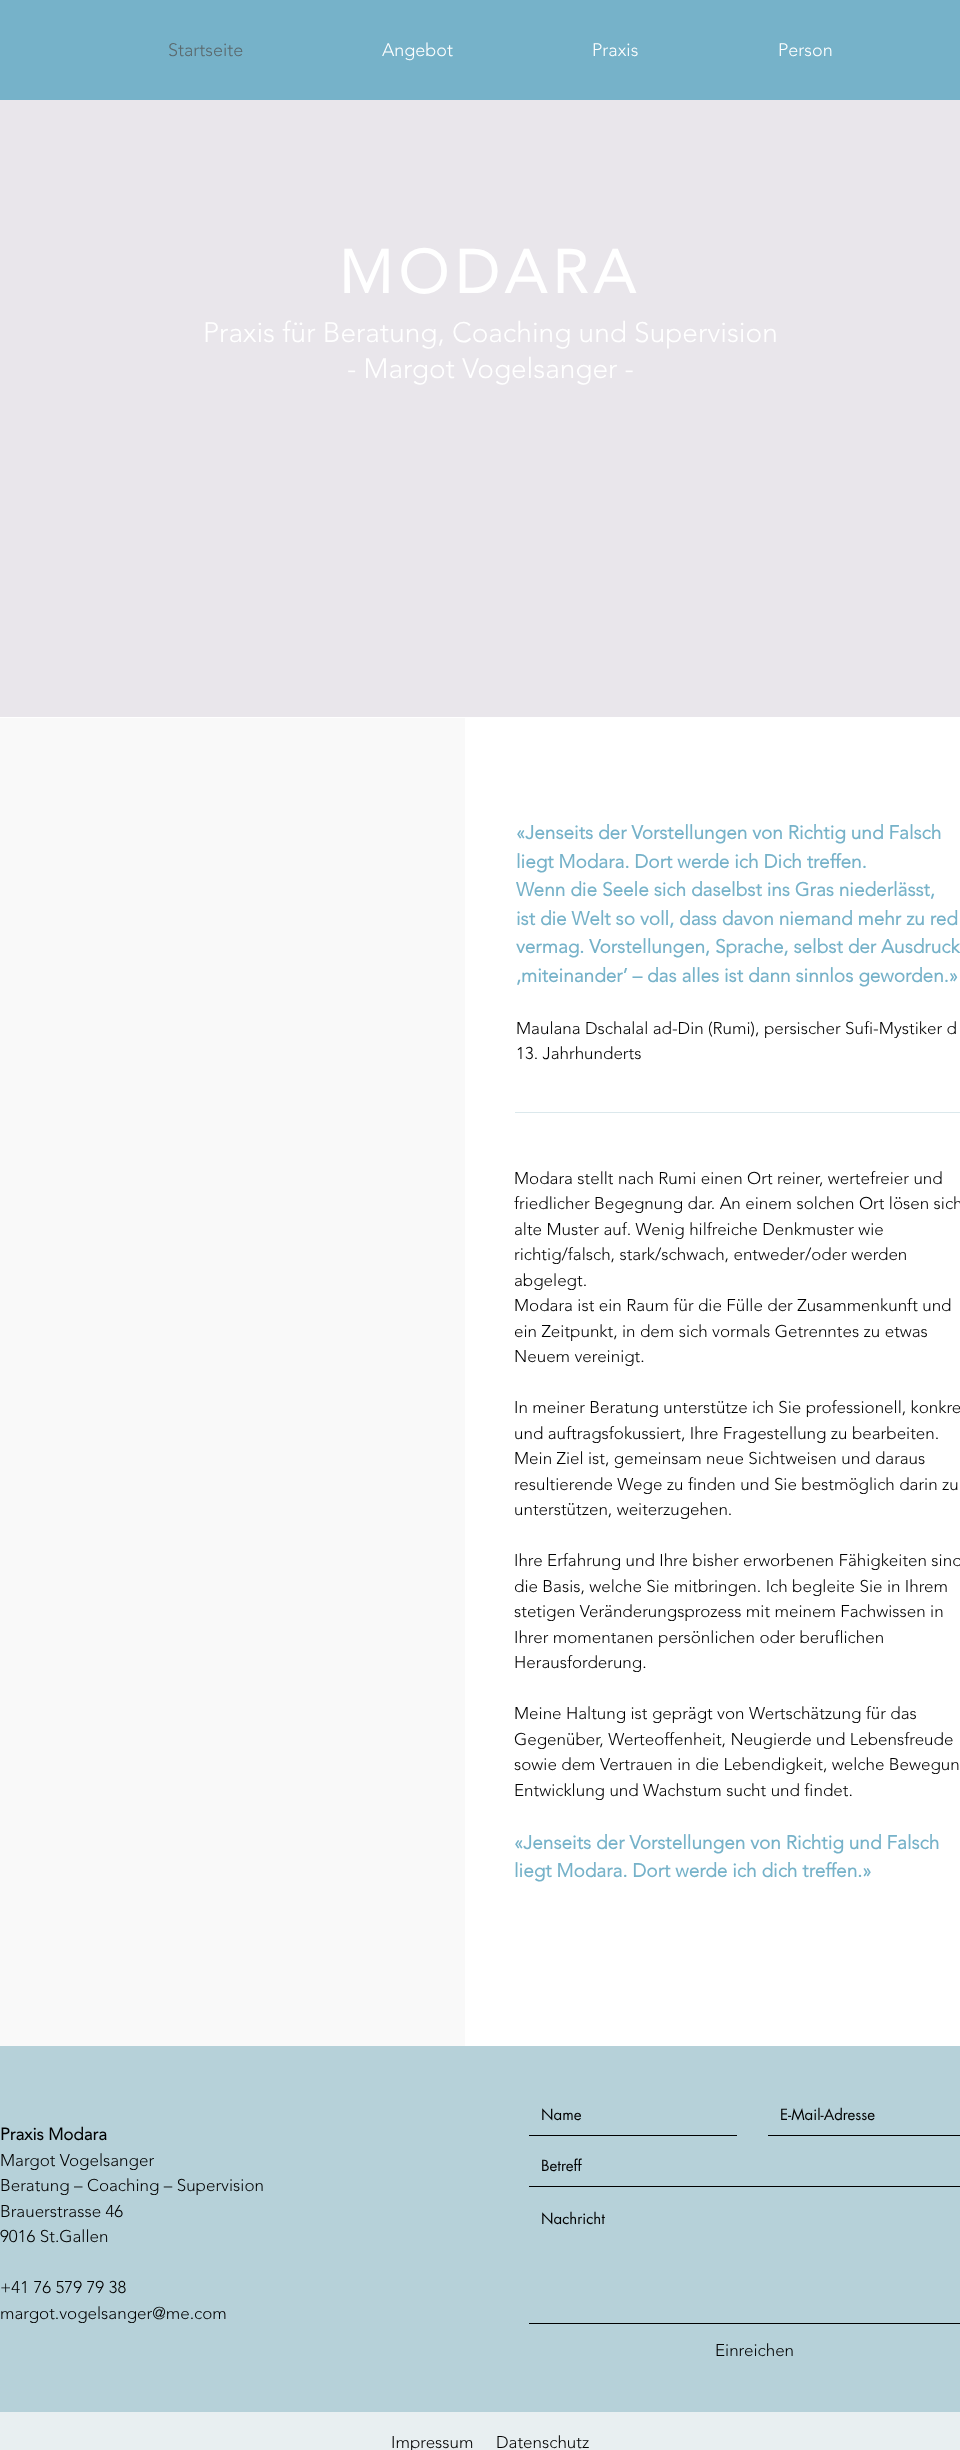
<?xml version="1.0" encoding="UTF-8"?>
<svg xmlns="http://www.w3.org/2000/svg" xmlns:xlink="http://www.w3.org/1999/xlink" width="960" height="2450">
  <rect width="100%" height="100%" fill="#ffffff" />
  <rect width="960" height="100" fill="#76b2c9" />
  <rect y="100" width="960" height="617" fill="#e9e6eb" />
  <rect y="718" width="465" height="1328" fill="#f9f9f9" />
  <rect x="515" y="1112" width="445" height="1" fill="#dbe8ec" />
  <rect y="2046" width="960" height="366" fill="#b6d1d9" />
  <rect x="529" y="2135" width="208" height="1" fill="#000000" />
  <rect x="768" y="2135" width="192" height="1" fill="#000000" />
  <rect x="529" y="2186" width="431" height="1" fill="#000000" />
  <rect x="529" y="2323" width="431" height="1" fill="#000000" />
  <rect y="2412" width="960" height="38" fill="#e8eff1" />
  <text x="168" y="56" style="font-family: 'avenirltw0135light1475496'; font-size: 18px; font-weight: 300; fill: #5b696d">Startseite</text>
  <text x="382" y="56" style="font-family: 'avenirltw0135light1475496'; font-size: 18px; font-weight: 300; fill: #ffffff">Angebot</text>
  <text x="592" y="56" style="font-family: 'avenirltw0135light1475496'; font-size: 18px; font-weight: 300; fill: #ffffff">Praxis</text>
  <text x="778" y="56" style="font-family: 'avenirltw0135light1475496'; font-size: 18px; font-weight: 300; fill: #ffffff">Person</text>
  <text x="339" y="293" style="font-family: 'avenirltw0135light1475496'; font-size: 60px; font-weight: bold; letter-spacing: 6px; fill: #ffffff">MODARA</text>
  <text x="203" y="342" style="font-family: 'avenirltw0135light1475496'; font-size: 28px; font-weight: 300; fill: #ffffff">Praxis für Beratung, Coaching und Supervision</text>
  <text x="347" y="378" style="font-family: 'avenirltw0135light1475496'; font-size: 28px; font-weight: 300; fill: #ffffff">- Margot Vogelsanger -</text>
  <text x="516" y="839" style="font-family: 'avenirltw0135light1475496'; font-size: 19px; font-weight: bold; fill: #76b2c9">«Jenseits der Vorstellungen von Richtig und Falsch</text>
  <text x="516" y="868" style="font-family: 'avenirltw0135light1475496'; font-size: 19px; font-weight: bold; fill: #76b2c9">liegt Modara. Dort werde ich Dich treffen.</text>
  <text x="516" y="896" style="font-family: 'avenirltw0135light1475496'; font-size: 19px; font-weight: bold; fill: #76b2c9">Wenn die Seele sich daselbst ins Gras niederlässt,</text>
  <text x="516" y="925" style="font-family: 'avenirltw0135light1475496'; font-size: 19px; font-weight: bold; fill: #76b2c9">ist die Welt so voll, dass davon niemand mehr zu red</text>
  <text x="516" y="953" style="font-family: 'avenirltw0135light1475496'; font-size: 19px; font-weight: bold; fill: #76b2c9">vermag. Vorstellungen, Sprache, selbst der Ausdruck</text>
  <text x="516" y="982" style="font-family: 'avenirltw0135light1475496'; font-size: 19px; font-weight: bold; fill: #76b2c9">‚miteinander’ – das alles ist dann sinnlos geworden.»</text>
  <text x="516" y="1034" style="font-family: 'avenirltw0135light1475496'; font-size: 17px; font-weight: 300; fill: #000000">Maulana Dschalal ad-Din (Rumi), persischer Sufi-Mystiker d</text>
  <text x="516" y="1059" style="font-family: 'avenirltw0135light1475496'; font-size: 17px; font-weight: 300; fill: #000000">13. Jahrhunderts</text>
  <text x="514" y="1184" style="font-family: 'avenirltw0135light1475496'; font-size: 17px; font-weight: 300; fill: #000000">Modara stellt nach Rumi einen Ort reiner, wertefreier und</text>
  <text x="514" y="1209" style="font-family: 'avenirltw0135light1475496'; font-size: 17px; font-weight: 300; fill: #000000">friedlicher Begegnung dar. An einem solchen Ort lösen sich</text>
  <text x="514" y="1235" style="font-family: 'avenirltw0135light1475496'; font-size: 17px; font-weight: 300; fill: #000000">alte Muster auf. Wenig hilfreiche Denkmuster wie</text>
  <text x="514" y="1260" style="font-family: 'avenirltw0135light1475496'; font-size: 17px; font-weight: 300; fill: #000000">richtig/falsch, stark/schwach, entweder/oder werden</text>
  <text x="514" y="1286" style="font-family: 'avenirltw0135light1475496'; font-size: 17px; font-weight: 300; fill: #000000">abgelegt.</text>
  <text x="514" y="1311" style="font-family: 'avenirltw0135light1475496'; font-size: 17px; font-weight: 300; fill: #000000">Modara ist ein Raum für die Fülle der Zusammenkunft und</text>
  <text x="514" y="1337" style="font-family: 'avenirltw0135light1475496'; font-size: 17px; font-weight: 300; fill: #000000">ein Zeitpunkt, in dem sich vormals Getrenntes zu etwas</text>
  <text x="514" y="1362" style="font-family: 'avenirltw0135light1475496'; font-size: 17px; font-weight: 300; fill: #000000">Neuem vereinigt.</text>
  <text x="514" y="1413" style="font-family: 'avenirltw0135light1475496'; font-size: 17px; font-weight: 300; fill: #000000">In meiner Beratung unterstütze ich Sie professionell, konkre</text>
  <text x="514" y="1439" style="font-family: 'avenirltw0135light1475496'; font-size: 17px; font-weight: 300; fill: #000000">und auftragsfokussiert, Ihre Fragestellung zu bearbeiten.</text>
  <text x="514" y="1464" style="font-family: 'avenirltw0135light1475496'; font-size: 17px; font-weight: 300; fill: #000000">Mein Ziel ist, gemeinsam neue Sichtweisen und daraus</text>
  <text x="514" y="1490" style="font-family: 'avenirltw0135light1475496'; font-size: 17px; font-weight: 300; fill: #000000">resultierende Wege zu finden und Sie bestmöglich darin zu</text>
  <text x="514" y="1515" style="font-family: 'avenirltw0135light1475496'; font-size: 17px; font-weight: 300; fill: #000000">unterstützen, weiterzugehen.</text>
  <text x="514" y="1566" style="font-family: 'avenirltw0135light1475496'; font-size: 17px; font-weight: 300; fill: #000000">Ihre Erfahrung und Ihre bisher erworbenen Fähigkeiten sind</text>
  <text x="514" y="1592" style="font-family: 'avenirltw0135light1475496'; font-size: 17px; font-weight: 300; fill: #000000">die Basis, welche Sie mitbringen. Ich begleite Sie in Ihrem</text>
  <text x="514" y="1617" style="font-family: 'avenirltw0135light1475496'; font-size: 17px; font-weight: 300; fill: #000000">stetigen Veränderungsprozess mit meinem Fachwissen in</text>
  <text x="514" y="1643" style="font-family: 'avenirltw0135light1475496'; font-size: 17px; font-weight: 300; fill: #000000">Ihrer momentanen persönlichen oder beruflichen</text>
  <text x="514" y="1668" style="font-family: 'avenirltw0135light1475496'; font-size: 17px; font-weight: 300; fill: #000000">Herausforderung.</text>
  <text x="514" y="1719" style="font-family: 'avenirltw0135light1475496'; font-size: 17px; font-weight: 300; fill: #000000">Meine Haltung ist geprägt von Wertschätzung für das</text>
  <text x="514" y="1745" style="font-family: 'avenirltw0135light1475496'; font-size: 17px; font-weight: 300; fill: #000000">Gegenüber, Werteoffenheit, Neugierde und Lebensfreude</text>
  <text x="514" y="1770" style="font-family: 'avenirltw0135light1475496'; font-size: 17px; font-weight: 300; fill: #000000">sowie dem Vertrauen in die Lebendigkeit, welche Bewegun</text>
  <text x="514" y="1796" style="font-family: 'avenirltw0135light1475496'; font-size: 17px; font-weight: 300; fill: #000000">Entwicklung und Wachstum sucht und findet.</text>
  <text x="514" y="1849" style="font-family: 'avenirltw0135light1475496'; font-size: 19px; font-weight: bold; fill: #76b2c9">«Jenseits der Vorstellungen von Richtig und Falsch</text>
  <text x="514" y="1877" style="font-family: 'avenirltw0135light1475496'; font-size: 19px; font-weight: bold; fill: #76b2c9">liegt Modara. Dort werde ich dich treffen.»</text>
  <text x="0" y="2140" style="font-family: 'avenirltw0135light1475496'; font-size: 17px; font-weight: bold; fill: #000000">Praxis Modara</text>
  <text x="0" y="2166" style="font-family: 'avenirltw0135light1475496'; font-size: 17px; font-weight: 300; fill: #000000">Margot Vogelsanger</text>
  <text x="0" y="2191" style="font-family: 'avenirltw0135light1475496'; font-size: 17px; font-weight: 300; fill: #000000">Beratung – Coaching – Supervision</text>
  <text x="0" y="2217" style="font-family: 'avenirltw0135light1475496'; font-size: 17px; font-weight: 300; fill: #000000">Brauerstrasse 46</text>
  <text x="0" y="2242" style="font-family: 'avenirltw0135light1475496'; font-size: 17px; font-weight: 300; fill: #000000">9016 St.Gallen</text>
  <text x="0" y="2293" style="font-family: 'avenirltw0135light1475496'; font-size: 17px; font-weight: 300; fill: #000000">+41 76 579 79 38</text>
  <text x="0" y="2319" style="font-family: 'avenirltw0135light1475496'; font-size: 17px; font-weight: 300; fill: #000000">margot.vogelsanger@me.com</text>
  <text x="541" y="2120" style="font-family: futura; font-size: 15px; fill: #000000">Name</text>
  <text x="780" y="2120" style="font-family: futura; font-size: 15px; fill: #000000">E-Mail-Adresse</text>
  <text x="541" y="2171" style="font-family: futura; font-size: 15px; fill: #000000">Betreff</text>
  <text x="541" y="2224" style="font-family: futura; font-size: 15px; fill: #000000">Nachricht</text>
  <text x="715" y="2356" style="font-family: 'avenirltw0135light1475496'; font-size: 17px; font-weight: 300; fill: #000000">Einreichen</text>
  <text x="391" y="2448" style="font-family: 'avenirltw0135light1475496'; font-size: 17px; font-weight: 300; fill: #000000">Impressum</text>
  <text x="496" y="2448" style="font-family: 'avenirltw0135light1475496'; font-size: 17px; font-weight: 300; fill: #000000">Datenschutz</text>
</svg>
